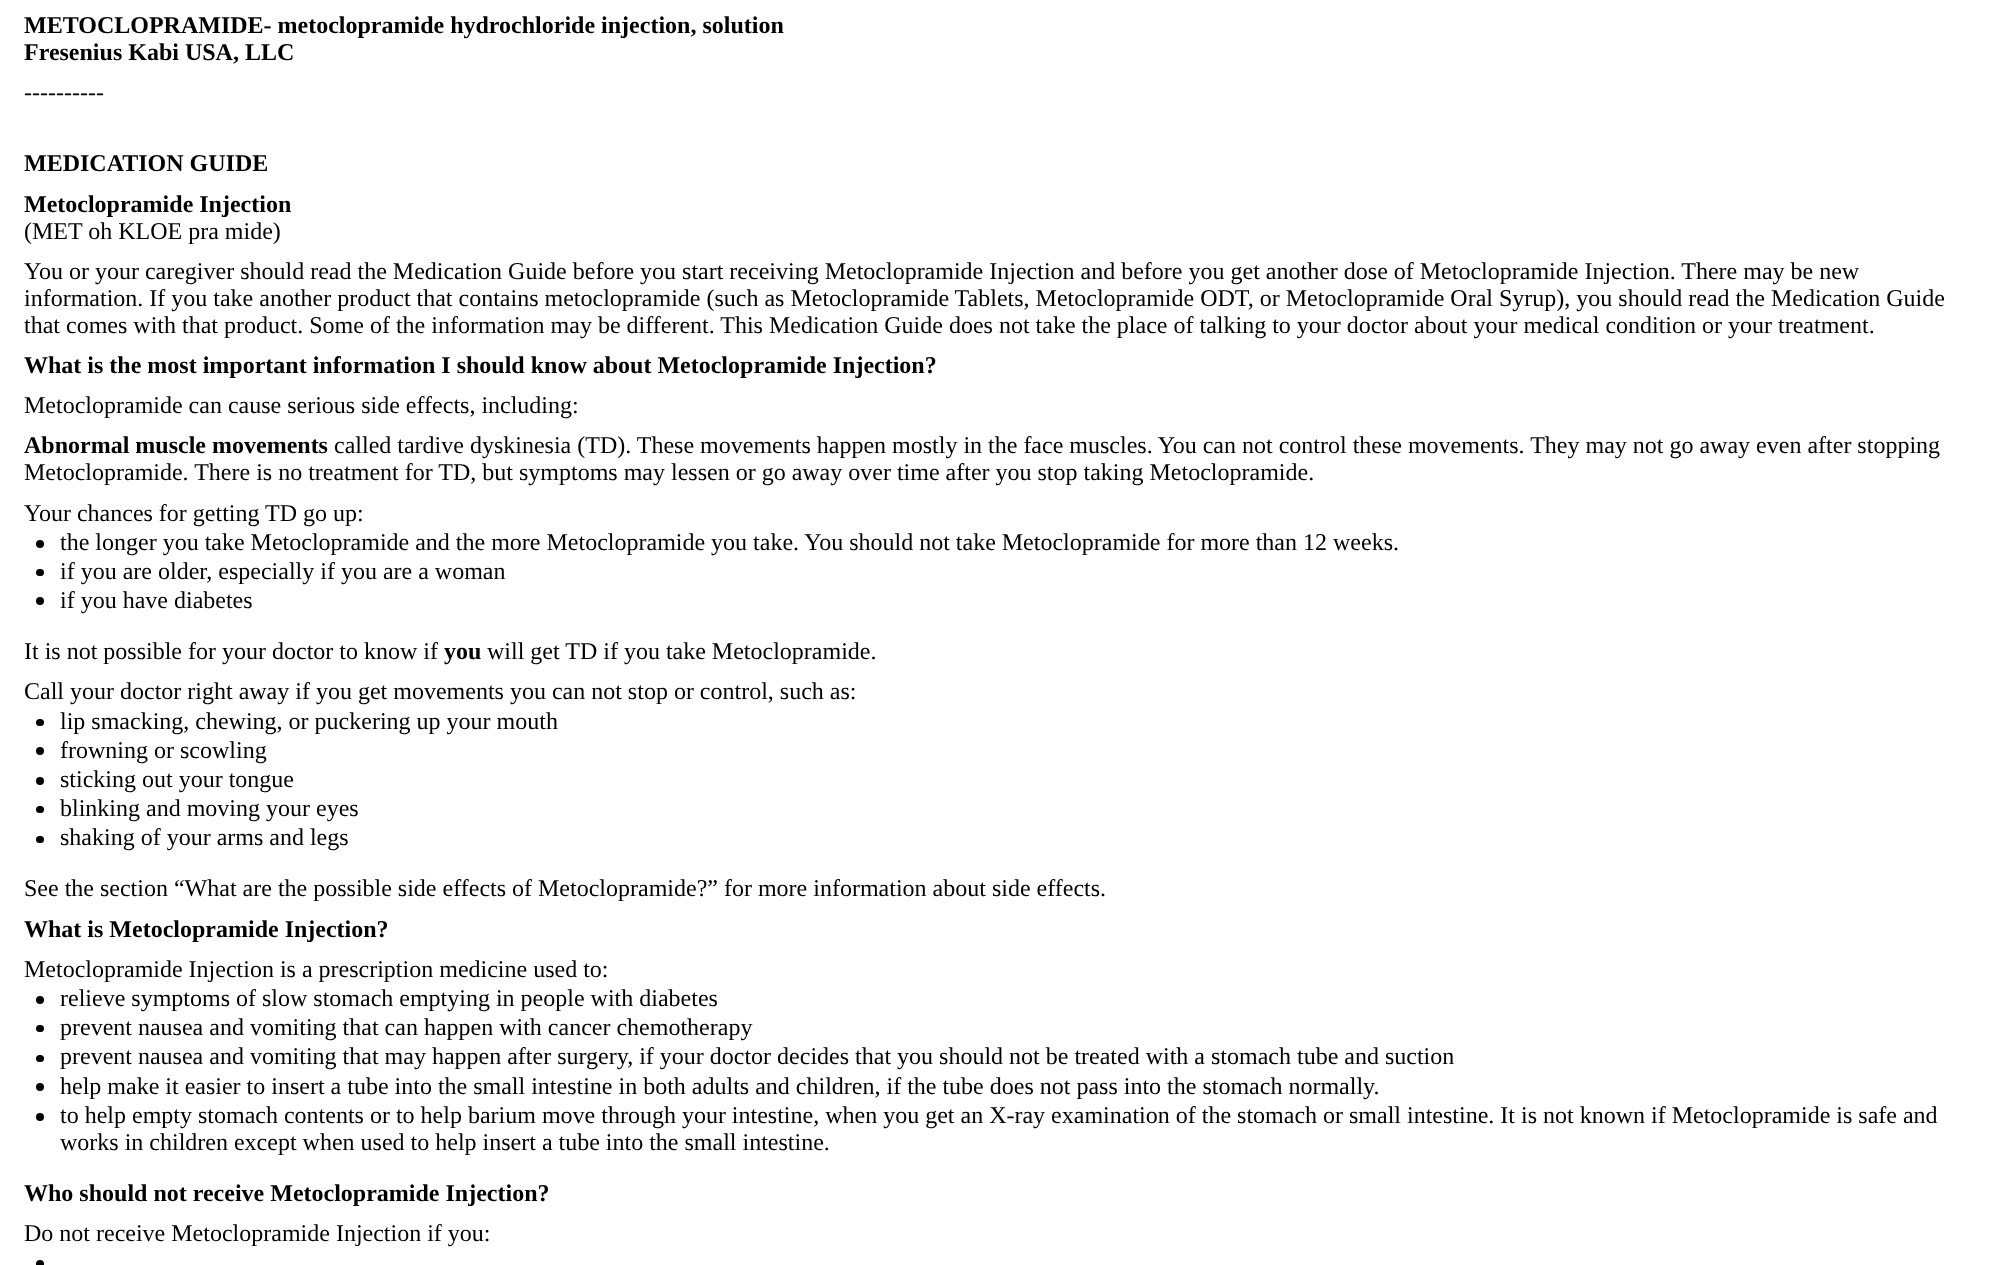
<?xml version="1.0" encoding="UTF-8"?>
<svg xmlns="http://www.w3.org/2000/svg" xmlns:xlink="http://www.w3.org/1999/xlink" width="1999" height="1265">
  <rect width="100%" height="100%" fill="#ffffff" />
  <circle cx="40" cy="544" r="4" fill="#000000" />
  <rect x="36" y="569" width="8" height="7" rx="3.5" fill="#000000" />
  <circle cx="40" cy="601" r="4" fill="#000000" />
  <rect x="36" y="719" width="8" height="7" rx="3.5" fill="#000000" />
  <circle cx="40" cy="751" r="4" fill="#000000" />
  <circle cx="40" cy="781" r="4" fill="#000000" />
  <rect x="36" y="806" width="8" height="7" rx="3.5" fill="#000000" />
  <rect x="36" y="836" width="8" height="7" rx="3.5" fill="#000000" />
  <circle cx="40" cy="1000" r="4" fill="#000000" />
  <rect x="36" y="1025" width="8" height="7" rx="3.5" fill="#000000" />
  <rect x="36" y="1055" width="8" height="7" rx="3.5" fill="#000000" />
  <circle cx="40" cy="1087" r="4" fill="#000000" />
  <circle cx="40" cy="1117" r="4" fill="#000000" />
  <circle cx="40" cy="1264" r="4" fill="#000000" />
  <text x="24" y="33" style="font-family: Liberation Serif; font-size: 24px; font-weight: bold; fill: #000000">METOCLOPRAMIDE- metoclopramide hydrochloride injection, solution</text>
  <text x="24" y="60" style="font-family: Liberation Serif; font-size: 24px; font-weight: bold; fill: #000000">Fresenius Kabi USA, LLC</text>
  <text x="24" y="100" style="font-family: Liberation Serif; font-size: 24px; fill: #000000">----------</text>
  <text x="24" y="171" style="font-family: Liberation Serif; font-size: 24px; font-weight: bold; fill: #000000">MEDICATION GUIDE</text>
  <text x="24" y="212" style="font-family: Liberation Serif; font-size: 24px; font-weight: bold; fill: #000000">Metoclopramide Injection</text>
  <text x="24" y="239" style="font-family: Liberation Serif; font-size: 24px; fill: #000000">(MET oh KLOE pra mide)</text>
  <text x="24" y="279" style="font-family: Liberation Serif; font-size: 24px; fill: #000000">You or your caregiver should read the Medication Guide before you start receiving Metoclopramide Injection and before you get another dose of Metoclopramide Injection. There may be new</text>
  <text x="24" y="306" style="font-family: Liberation Serif; font-size: 24px; fill: #000000">information. If you take another product that contains metoclopramide (such as Metoclopramide Tablets, Metoclopramide ODT, or Metoclopramide Oral Syrup), you should read the Medication Guide</text>
  <text x="24" y="333" style="font-family: Liberation Serif; font-size: 24px; fill: #000000">that comes with that product. Some of the information may be different. This Medication Guide does not take the place of talking to your doctor about your medical condition or your treatment.</text>
  <text x="24" y="373" style="font-family: Liberation Serif; font-size: 24px; font-weight: bold; fill: #000000">What is the most important information I should know about Metoclopramide Injection?</text>
  <text x="24" y="413" style="font-family: Liberation Serif; font-size: 24px; fill: #000000">Metoclopramide can cause serious side effects, including:</text>
  <text x="24" y="453" style="font-family: Liberation Serif; font-size: 24px; font-weight: bold; fill: #000000">Abnormal muscle movements</text>
  <text x="334" y="453" style="font-family: Liberation Serif; font-size: 24px; fill: #000000">called tardive dyskinesia (TD). These movements happen mostly in the face muscles. You can not control these movements. They may not go away even after stopping</text>
  <text x="24" y="480" style="font-family: Liberation Serif; font-size: 24px; fill: #000000">Metoclopramide. There is no treatment for TD, but symptoms may lessen or go away over time after you stop taking Metoclopramide.</text>
  <text x="24" y="521" style="font-family: Liberation Serif; font-size: 24px; fill: #000000">Your chances for getting TD go up:</text>
  <text x="60" y="550" style="font-family: Liberation Serif; font-size: 24px; fill: #000000">the longer you take Metoclopramide and the more Metoclopramide you take. You should not take Metoclopramide for more than 12 weeks.</text>
  <text x="60" y="579" style="font-family: Liberation Serif; font-size: 24px; fill: #000000">if you are older, especially if you are a woman</text>
  <text x="60" y="608" style="font-family: Liberation Serif; font-size: 24px; fill: #000000">if you have diabetes</text>
  <text x="24" y="659" style="font-family: Liberation Serif; font-size: 24px; fill: #000000">It is not possible for your doctor to know if</text>
  <text x="444" y="659" style="font-family: Liberation Serif; font-size: 24px; font-weight: bold; fill: #000000">you</text>
  <text x="487" y="659" style="font-family: Liberation Serif; font-size: 24px; fill: #000000">will get TD if you take Metoclopramide.</text>
  <text x="24" y="699" style="font-family: Liberation Serif; font-size: 24px; fill: #000000">Call your doctor right away if you get movements you can not stop or control, such as:</text>
  <text x="60" y="729" style="font-family: Liberation Serif; font-size: 24px; fill: #000000">lip smacking, chewing, or puckering up your mouth</text>
  <text x="60" y="758" style="font-family: Liberation Serif; font-size: 24px; fill: #000000">frowning or scowling</text>
  <text x="60" y="787" style="font-family: Liberation Serif; font-size: 24px; fill: #000000">sticking out your tongue</text>
  <text x="60" y="816" style="font-family: Liberation Serif; font-size: 24px; fill: #000000">blinking and moving your eyes</text>
  <text x="60" y="845" style="font-family: Liberation Serif; font-size: 24px; fill: #000000">shaking of your arms and legs</text>
  <text x="24" y="896" style="font-family: Liberation Serif; font-size: 24px; fill: #000000">See the section “What are the possible side effects of Metoclopramide?” for more information about side effects.</text>
  <text x="24" y="937" style="font-family: Liberation Serif; font-size: 24px; font-weight: bold; fill: #000000">What is Metoclopramide Injection?</text>
  <text x="24" y="977" style="font-family: Liberation Serif; font-size: 24px; fill: #000000">Metoclopramide Injection is a prescription medicine used to:</text>
  <text x="60" y="1006" style="font-family: Liberation Serif; font-size: 24px; fill: #000000">relieve symptoms of slow stomach emptying in people with diabetes</text>
  <text x="60" y="1035" style="font-family: Liberation Serif; font-size: 24px; fill: #000000">prevent nausea and vomiting that can happen with cancer chemotherapy</text>
  <text x="60" y="1064" style="font-family: Liberation Serif; font-size: 24px; fill: #000000">prevent nausea and vomiting that may happen after surgery, if your doctor decides that you should not be treated with a stomach tube and suction</text>
  <text x="60" y="1094" style="font-family: Liberation Serif; font-size: 24px; fill: #000000">help make it easier to insert a tube into the small intestine in both adults and children, if the tube does not pass into the stomach normally.</text>
  <text x="60" y="1123" style="font-family: Liberation Serif; font-size: 24px; fill: #000000">to help empty stomach contents or to help barium move through your intestine, when you get an X-ray examination of the stomach or small intestine. It is not known if Metoclopramide is safe and</text>
  <text x="60" y="1150" style="font-family: Liberation Serif; font-size: 24px; fill: #000000">works in children except when used to help insert a tube into the small intestine.</text>
  <text x="24" y="1201" style="font-family: Liberation Serif; font-size: 24px; font-weight: bold; fill: #000000">Who should not receive Metoclopramide Injection?</text>
  <text x="24" y="1241" style="font-family: Liberation Serif; font-size: 24px; fill: #000000">Do not receive Metoclopramide Injection if you:</text>
</svg>
